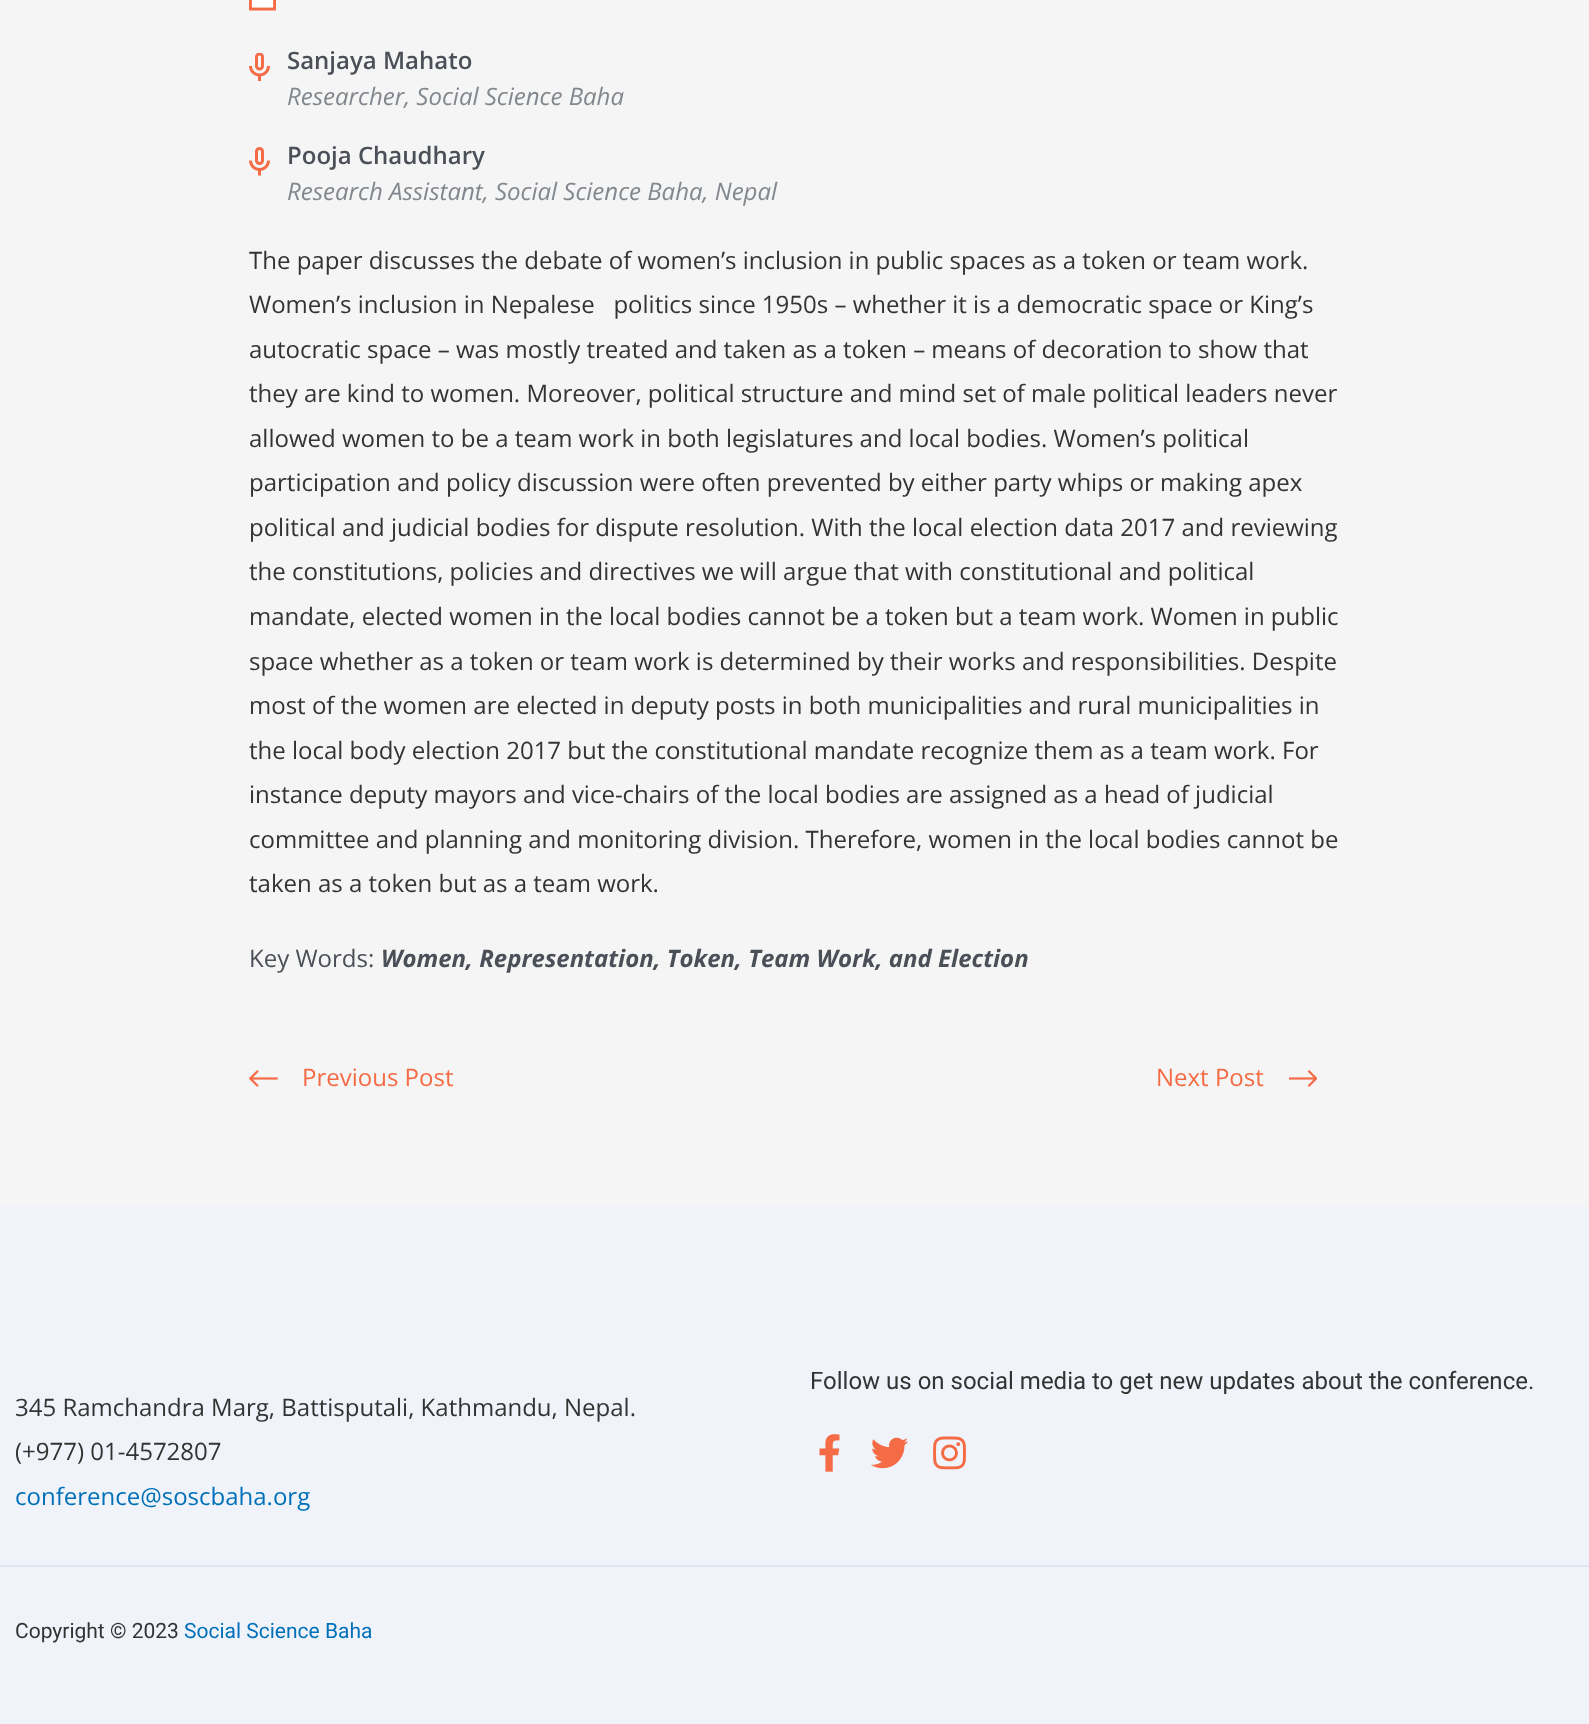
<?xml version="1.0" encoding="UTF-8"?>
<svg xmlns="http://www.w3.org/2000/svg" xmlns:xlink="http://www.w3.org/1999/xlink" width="1589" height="1724">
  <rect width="100%" height="100%" fill="#f5f5f5" />
  <image x="249" y="0" width="27" height="11" xlink:href="image1.png" />
  <image x="249" y="53" width="21" height="28" xlink:href="image2.png" />
  <image x="249" y="147" width="21" height="29" xlink:href="image3.png" />
  <image x="249" y="1070" width="29" height="17" xlink:href="image4.png" />
  <image x="1289" y="1070" width="28" height="17" xlink:href="image5.png" />
  <rect y="1206" width="1589" height="518" fill="#f0f4fa" />
  <image x="819" y="1434" width="21" height="38" xlink:href="image6.png" />
  <image x="871" y="1437" width="38" height="32" xlink:href="image7.png" />
  <image x="933" y="1436" width="33" height="34" xlink:href="image8.png" />
  <rect y="1565" width="1589" height="2" fill="#dee6ef" />
  <text x="287" y="69" style="font-family: Open Sans; font-size: 24px; font-weight: 600; fill: #4b4f58">Sanjaya Mahato</text>
  <text x="287" y="105" style="font-family: Open Sans; font-size: 24px; font-style: italic; fill: #81878d">Researcher, Social Science Baha</text>
  <text x="287" y="164" style="font-family: Open Sans; font-size: 24px; font-weight: 600; fill: #4b4f58">Pooja Chaudhary</text>
  <text x="287" y="200" style="font-family: Open Sans; font-size: 24px; font-style: italic; fill: #81878d">Research Assistant, Social Science Baha, Nepal</text>
  <text x="249" y="269" style="font-family: Open Sans; font-size: 24px; fill: #333333">The paper discusses the debate of women’s inclusion in public spaces as a token or team work.</text>
  <text x="249" y="313" style="font-family: Open Sans; font-size: 24px; fill: #333333" xml:space="preserve">Women’s inclusion in Nepalese   politics since 1950s – whether it is a democratic space or King’s</text>
  <text x="249" y="358" style="font-family: Open Sans; font-size: 24px; fill: #333333">autocratic space – was mostly treated and taken as a token – means of decoration to show that</text>
  <text x="249" y="402" style="font-family: Open Sans; font-size: 24px; fill: #333333">they are kind to women. Moreover, political structure and mind set of male political leaders never</text>
  <text x="249" y="447" style="font-family: Open Sans; font-size: 24px; fill: #333333">allowed women to be a team work in both legislatures and local bodies. Women’s political</text>
  <text x="249" y="491" style="font-family: Open Sans; font-size: 24px; fill: #333333">participation and policy discussion were often prevented by either party whips or making apex</text>
  <text x="249" y="536" style="font-family: Open Sans; font-size: 24px; fill: #333333">political and judicial bodies for dispute resolution. With the local election data 2017 and reviewing</text>
  <text x="249" y="580" style="font-family: Open Sans; font-size: 24px; fill: #333333">the constitutions, policies and directives we will argue that with constitutional and political</text>
  <text x="249" y="625" style="font-family: Open Sans; font-size: 24px; fill: #333333">mandate, elected women in the local bodies cannot be a token but a team work. Women in public</text>
  <text x="249" y="670" style="font-family: Open Sans; font-size: 24px; fill: #333333">space whether as a token or team work is determined by their works and responsibilities. Despite</text>
  <text x="249" y="714" style="font-family: Open Sans; font-size: 24px; fill: #333333">most of the women are elected in deputy posts in both municipalities and rural municipalities in</text>
  <text x="249" y="759" style="font-family: Open Sans; font-size: 24px; fill: #333333">the local body election 2017 but the constitutional mandate recognize them as a team work. For</text>
  <text x="249" y="803" style="font-family: Open Sans; font-size: 24px; fill: #333333">instance deputy mayors and vice-chairs of the local bodies are assigned as a head of judicial</text>
  <text x="249" y="848" style="font-family: Open Sans; font-size: 24px; fill: #333333">committee and planning and monitoring division. Therefore, women in the local bodies cannot be</text>
  <text x="249" y="892" style="font-family: Open Sans; font-size: 24px; fill: #333333">taken as a token but as a team work.</text>
  <text x="249" y="967" style="font-family: Open Sans; font-size: 24px; fill: #4b4f58">Key Words:</text>
  <text x="381" y="967" style="font-family: Open Sans; font-size: 24px; font-weight: bold; font-style: italic; fill: #4b4f58">Women, Representation, Token, Team Work, and Election</text>
  <text x="302" y="1086" style="font-family: Open Sans; font-size: 24px; fill: #f46b45">Previous Post</text>
  <text x="1156" y="1086" style="font-family: Open Sans; font-size: 24px; fill: #f46b45">Next Post</text>
  <text x="810" y="1389" style="font-family: Roboto; font-size: 24px; fill: #333333">Follow us on social media to get new updates about the conference.</text>
  <text x="15" y="1416" style="font-family: Open Sans; font-size: 24px; fill: #333333">345 Ramchandra Marg, Battisputali, Kathmandu, Nepal.</text>
  <text x="15" y="1460" style="font-family: Open Sans; font-size: 24px; fill: #333333">(+977) 01-4572807</text>
  <text x="15" y="1505" style="font-family: Open Sans; font-size: 24px; fill: #0170b9">conference@soscbaha.org</text>
  <text x="15" y="1638" style="font-family: Roboto; font-size: 21px; fill: #333333">Copyright © 2023</text>
  <text x="184" y="1638" style="font-family: Roboto; font-size: 21px; fill: #0170b9">Social Science Baha</text>
</svg>
